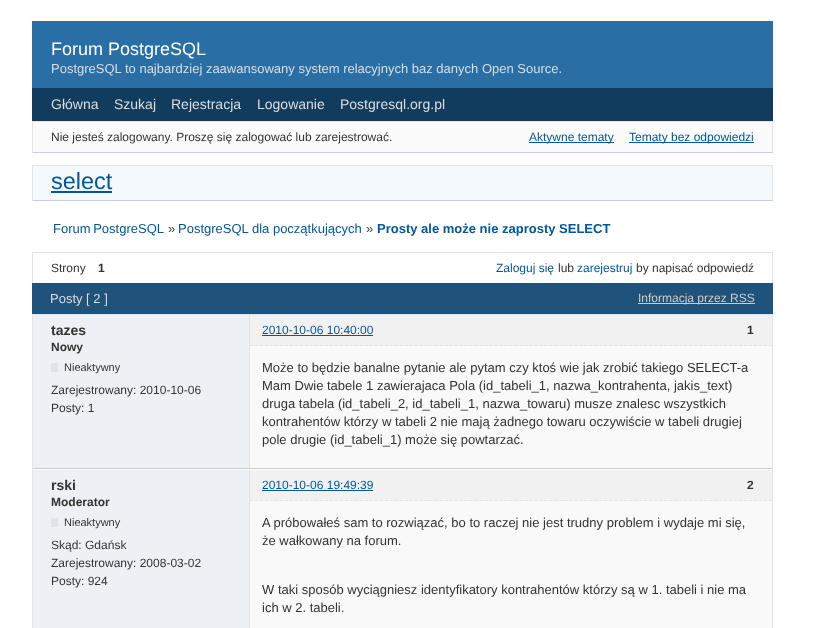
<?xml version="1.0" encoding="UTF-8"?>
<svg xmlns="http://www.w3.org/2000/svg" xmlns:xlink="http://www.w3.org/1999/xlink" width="823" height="628">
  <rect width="100%" height="100%" fill="#ffffff" />
  <rect x="32" y="21" width="741" height="67" fill="#296fa5" />
  <rect x="32" y="88" width="741" height="33" fill="#113c5e" />
  <rect x="33" y="122" width="739" height="30" fill="#fbfbfb" />
  <rect x="32" y="121" width="741" height="1" fill="#dfe6ed" />
  <rect x="772" y="121" width="1" height="32" fill="#dfe6ed" />
  <rect x="32" y="152" width="741" height="1" fill="#cbd1d8" />
  <rect x="32" y="121" width="1" height="32" fill="#dfe6ed" />
  <rect x="529" y="142" width="85" height="1" fill="#00579c" />
  <rect x="629" y="142" width="125" height="1" fill="#00579c" />
  <rect x="33" y="166" width="739" height="34" fill="#f4f9fd" />
  <rect x="32" y="165" width="741" height="1" fill="#dfe6ed" />
  <rect x="772" y="165" width="1" height="36" fill="#dfe6ed" />
  <rect x="32" y="200" width="741" height="1" fill="#cbd1d8" />
  <rect x="32" y="165" width="1" height="36" fill="#dfe6ed" />
  <rect x="51" y="191" width="61" height="2" fill="#00579c" />
  <rect x="32" y="252" width="741" height="1" fill="#dde4eb" />
  <rect x="772" y="252" width="1" height="31" fill="#dde4eb" />
  <rect x="32" y="252" width="1" height="31" fill="#dde4eb" />
  <rect x="32" y="283" width="741" height="31" fill="#1f537b" />
  <rect x="638" y="303" width="117" height="1" fill="#cccccc" />
  <rect x="32" y="314" width="741" height="1" fill="#dfe6ed" />
  <rect x="772" y="314" width="1" height="314" fill="#dfe6ed" />
  <rect x="32" y="314" width="1" height="314" fill="#dfe6ed" />
  <rect x="33" y="315" width="216" height="153" fill="#edf1f5" />
  <rect x="33" y="468" width="739" height="1" fill="#cccccc" />
  <rect x="249" y="315" width="1" height="153" fill="#dde4eb" />
  <rect x="250" y="315" width="522" height="31" fill="#f1f1f1" />
  <path d="M 250 345.5 h 522" fill="none" stroke="#dde4eb" stroke-dasharray="3 1.99" />
  <rect x="262" y="335" width="111" height="1" fill="#00579c" />
  <rect x="250" y="346" width="522" height="122" fill="#f9f9f9" />
  <rect x="51" y="363" width="7" height="9" fill="#dde4eb" />
  <rect x="33" y="470" width="216" height="158" fill="#edf1f5" />
  <rect x="249" y="470" width="1" height="158" fill="#dde4eb" />
  <rect x="250" y="470" width="522" height="31" fill="#f1f1f1" />
  <path d="M 250 500.5 h 522" fill="none" stroke="#dde4eb" stroke-dasharray="3 1.99" />
  <rect x="262" y="490" width="111" height="1" fill="#00579c" />
  <rect x="250" y="501" width="522" height="127" fill="#f9f9f9" />
  <rect x="51" y="518" width="7" height="9" fill="#dde4eb" />
  <text x="51" y="55" style="font-family: Liberation Sans; font-size: 18px; fill: #ffffff">Forum PostgreSQL</text>
  <text x="51" y="73" style="font-family: Liberation Sans; font-size: 13px; fill: #dddddd">PostgreSQL to najbardziej zaawansowany system relacyjnych baz danych Open Source.</text>
  <text x="51" y="109" style="font-family: Liberation Sans; font-size: 14px; fill: #dddddd">Główna</text>
  <text x="114" y="109" style="font-family: Liberation Sans; font-size: 14px; fill: #dddddd">Szukaj</text>
  <text x="171" y="109" style="font-family: Liberation Sans; font-size: 14px; fill: #dddddd">Rejestracja</text>
  <text x="257" y="109" style="font-family: Liberation Sans; font-size: 14px; fill: #dddddd">Logowanie</text>
  <text x="340" y="109" style="font-family: Liberation Sans; font-size: 14px; fill: #dddddd">Postgresql.org.pl</text>
  <text x="51" y="141" style="font-family: Liberation Sans; font-size: 12px; fill: #333333">Nie jesteś zalogowany. Proszę się zalogować lub zarejestrować.</text>
  <text x="529" y="141" style="font-family: Liberation Sans; font-size: 12px; fill: #00579c">Aktywne tematy</text>
  <text x="629" y="141" style="font-family: Liberation Sans; font-size: 12px; fill: #00579c">Tematy bez odpowiedzi</text>
  <text x="51" y="189" style="font-family: Liberation Sans; font-size: 23.5px; fill: #00579c">select</text>
  <text x="53" y="233" word-spacing="-1" style="font-family: Liberation Sans; font-size: 13px; fill: #00579c">Forum PostgreSQL</text>
  <text x="168" y="233" style="font-family: Liberation Sans; font-size: 13px; fill: #333333">»</text>
  <text x="178" y="233" style="font-family: Liberation Sans; font-size: 13px; fill: #00579c">PostgreSQL dla początkujących</text>
  <text x="366" y="233" style="font-family: Liberation Sans; font-size: 13px; fill: #333333">»</text>
  <text x="377" y="233" style="font-family: Liberation Sans; font-size: 13px; font-weight: bold; fill: #00579c">Prosty ale może nie zaprosty SELECT</text>
  <text x="51" y="272" style="font-family: Liberation Sans; font-size: 12px; fill: #333333">Strony</text>
  <text x="98" y="272" style="font-family: Liberation Sans; font-size: 12px; font-weight: bold; fill: #333333">1</text>
  <text x="496" y="272" style="font-family: Liberation Sans; font-size: 12px; fill: #00579c">Zaloguj się</text>
  <text x="558" y="272" style="font-family: Liberation Sans; font-size: 12px; fill: #333333">lub</text>
  <text x="577" y="272" style="font-family: Liberation Sans; font-size: 12px; fill: #00579c">zarejestruj</text>
  <text x="636" y="272" style="font-family: Liberation Sans; font-size: 12px; fill: #333333">by napisać odpowiedź</text>
  <text x="50" y="303" style="font-family: Liberation Sans; font-size: 13px; fill: #dddddd">Posty [ 2 ]</text>
  <text x="638" y="302" style="font-family: Liberation Sans; font-size: 12px; fill: #cccccc">Informacja przez RSS</text>
  <text x="51" y="335" style="font-family: Liberation Sans; font-size: 14px; font-weight: bold; fill: #333333">tazes</text>
  <text x="262" y="334" style="font-family: Liberation Sans; font-size: 12px; fill: #00579c">2010-10-06 10:40:00</text>
  <text x="747" y="334" style="font-family: Liberation Sans; font-size: 12px; font-weight: bold; fill: #333333">1</text>
  <text x="51" y="351" style="font-family: Liberation Sans; font-size: 12px; font-weight: bold; fill: #333333">Nowy</text>
  <text x="64" y="371" style="font-family: Liberation Sans; font-size: 11px; fill: #333333">Nieaktywny</text>
  <text x="51" y="394" style="font-family: Liberation Sans; font-size: 12px; fill: #333333">Zarejestrowany: 2010-10-06</text>
  <text x="51" y="412" style="font-family: Liberation Sans; font-size: 12px; fill: #333333">Posty: 1</text>
  <text x="262" y="372" style="font-family: Liberation Sans; font-size: 13px; fill: #333333">Może to będzie banalne pytanie ale pytam czy ktoś wie jak zrobić takiego SELECT-a</text>
  <text x="262" y="390" style="font-family: Liberation Sans; font-size: 13px; fill: #333333">Mam Dwie tabele 1 zawierajaca Pola (id_tabeli_1, nazwa_kontrahenta, jakis_text)</text>
  <text x="262" y="408" style="font-family: Liberation Sans; font-size: 13px; fill: #333333">druga tabela (id_tabeli_2, id_tabeli_1, nazwa_towaru) musze znalesc wszystkich</text>
  <text x="262" y="426" style="font-family: Liberation Sans; font-size: 13px; fill: #333333">kontrahentów którzy w tabeli 2 nie mają żadnego towaru oczywiście w tabeli drugiej</text>
  <text x="262" y="444" style="font-family: Liberation Sans; font-size: 13px; fill: #333333">pole drugie (id_tabeli_1) może się powtarzać.</text>
  <text x="51" y="490" style="font-family: Liberation Sans; font-size: 14px; font-weight: bold; fill: #333333">rski</text>
  <text x="262" y="489" style="font-family: Liberation Sans; font-size: 12px; fill: #00579c">2010-10-06 19:49:39</text>
  <text x="747" y="489" style="font-family: Liberation Sans; font-size: 12px; font-weight: bold; fill: #333333">2</text>
  <text x="51" y="506" style="font-family: Liberation Sans; font-size: 12px; font-weight: bold; fill: #333333">Moderator</text>
  <text x="64" y="526" style="font-family: Liberation Sans; font-size: 11px; fill: #333333">Nieaktywny</text>
  <text x="51" y="549" style="font-family: Liberation Sans; font-size: 12px; fill: #333333">Skąd: Gdańsk</text>
  <text x="51" y="567" style="font-family: Liberation Sans; font-size: 12px; fill: #333333">Zarejestrowany: 2008-03-02</text>
  <text x="51" y="585" style="font-family: Liberation Sans; font-size: 12px; fill: #333333">Posty: 924</text>
  <text x="262" y="527" style="font-family: Liberation Sans; font-size: 13px; fill: #333333">A próbowałeś sam to rozwiązać, bo to raczej nie jest trudny problem i wydaje mi się,</text>
  <text x="262" y="545" style="font-family: Liberation Sans; font-size: 13px; fill: #333333">że wałkowany na forum.</text>
  <text x="262" y="594" style="font-family: Liberation Sans; font-size: 13px; fill: #333333">W taki sposób wyciągniesz identyfikatory kontrahentów którzy są w 1. tabeli i nie ma</text>
  <text x="262" y="612" style="font-family: Liberation Sans; font-size: 13px; fill: #333333">ich w 2. tabeli.</text>
</svg>
